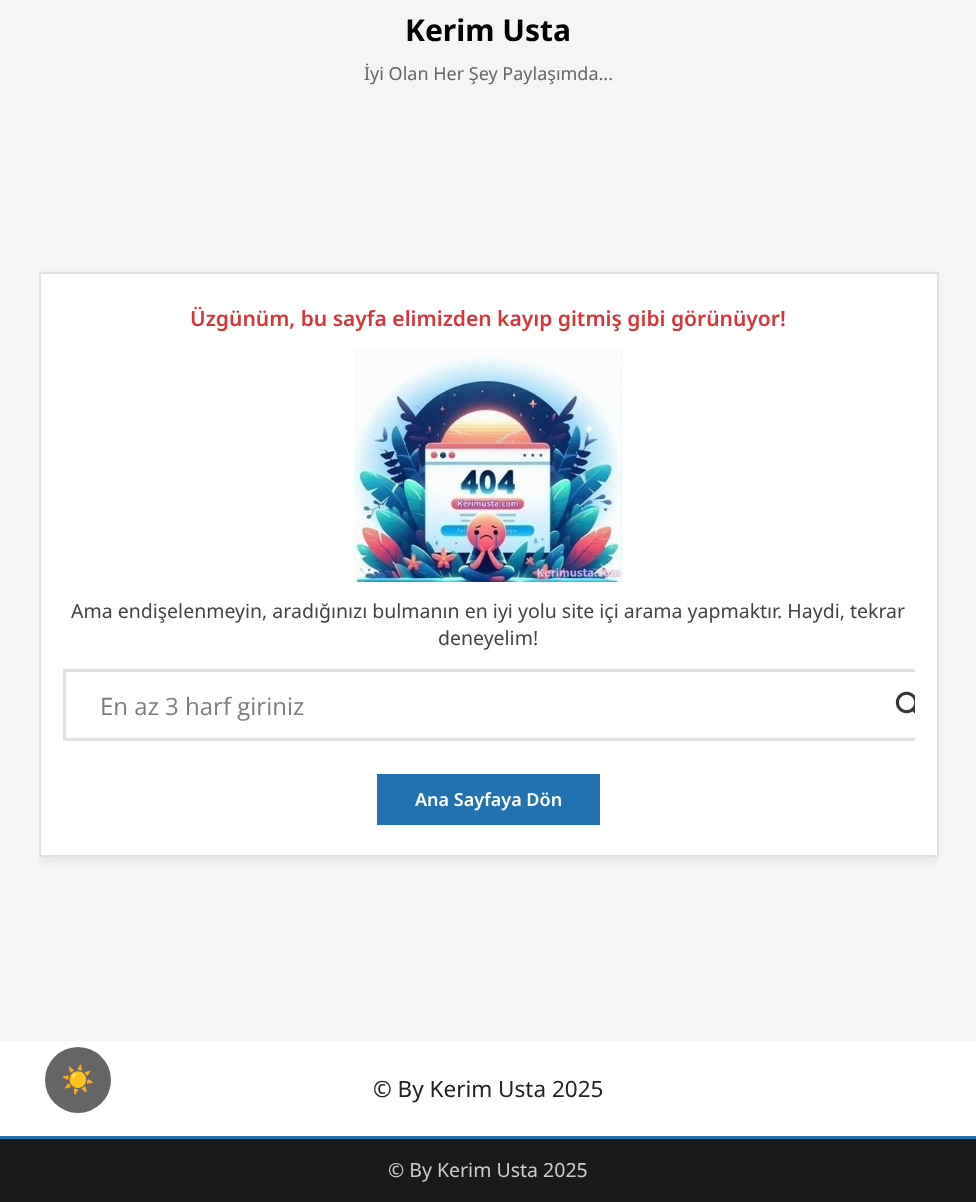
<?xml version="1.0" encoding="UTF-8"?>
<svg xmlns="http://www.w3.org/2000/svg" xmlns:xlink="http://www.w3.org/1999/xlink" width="976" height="1202">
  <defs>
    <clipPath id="clip1"><rect x="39" y="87" width="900" height="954" /></clipPath>
    <clipPath id="clip2"><rect x="63" y="669" width="852" height="72" /></clipPath>
  </defs>
  <rect width="100%" height="100%" fill="#f5f5f5" />
  <g clip-path="url(#clip1)">
    <rect x="39" y="275" width="900" height="585" fill="#000000" fill-opacity="0.08" filter="blur(6px)" />
  </g>
  <rect x="40" y="273" width="898" height="583" fill="#ffffff" stroke="#e1e1e1" stroke-width="2" />
  <image x="354" y="349" width="269" height="233" xlink:href="image1.png" />
  <g clip-path="url(#clip2)">
    <rect x="64.5" y="670.5" width="879" height="69" fill="none" stroke="#e1e1e1" stroke-width="3" />
  </g>
  <image x="895" y="691" width="20" height="23" xlink:href="image2.png" />
  <rect x="377" y="774" width="223" height="51" fill="#2271b1" />
  <rect y="1041" width="976" height="95" fill="#ffffff" />
  <circle cx="78" cy="1080" r="33" fill="#656565" />
  <rect y="1139" width="976" height="63" fill="#1a1a1a" />
  <rect y="1136" width="976" height="3" fill="#2271b1" />
  <text x="405" y="41" style="font-family: Noto Sans; font-size: 30px; font-weight: bold; fill: #000000">Kerim Usta</text>
  <text x="364" y="80" style="font-family: Noto Sans; font-size: 18px; fill: #666666">İyi Olan Her Şey Paylaşımda...</text>
  <text x="190" y="326" style="font-family: Noto Sans; font-size: 21px; font-weight: 600; fill: #d63638">Üzgünüm, bu sayfa elimizden kayıp gitmiş gibi görünüyor!</text>
  <text x="71" y="618" style="font-family: Noto Sans; font-size: 19.5px; fill: #444444">Ama endişelenmeyin, aradığınızı bulmanın en iyi yolu site içi arama yapmaktır. Haydi, tekrar</text>
  <text x="438" y="645" style="font-family: Noto Sans; font-size: 19.5px; fill: #444444">deneyelim!</text>
  <text x="100" y="715" style="font-family: Open Sans; font-size: 24px; fill: #7d7d7d">En az 3 harf giriniz</text>
  <text x="415" y="806" style="font-family: Noto Sans; font-size: 18px; font-weight: 600; fill: #ffffff">Ana Sayfaya Dön</text>
  <text x="61" y="1089" style="font-family: Noto Color Emoji; font-size: 27px; font-weight: bold; fill: #eeeeee">☀️</text>
  <text x="373" y="1097" style="font-family: Noto Sans; font-size: 22.5px; fill: #222222">© By Kerim Usta 2025</text>
  <text x="388" y="1177" style="font-family: Noto Sans; font-size: 19.5px; fill: #cccccc">© By Kerim Usta 2025</text>
</svg>
